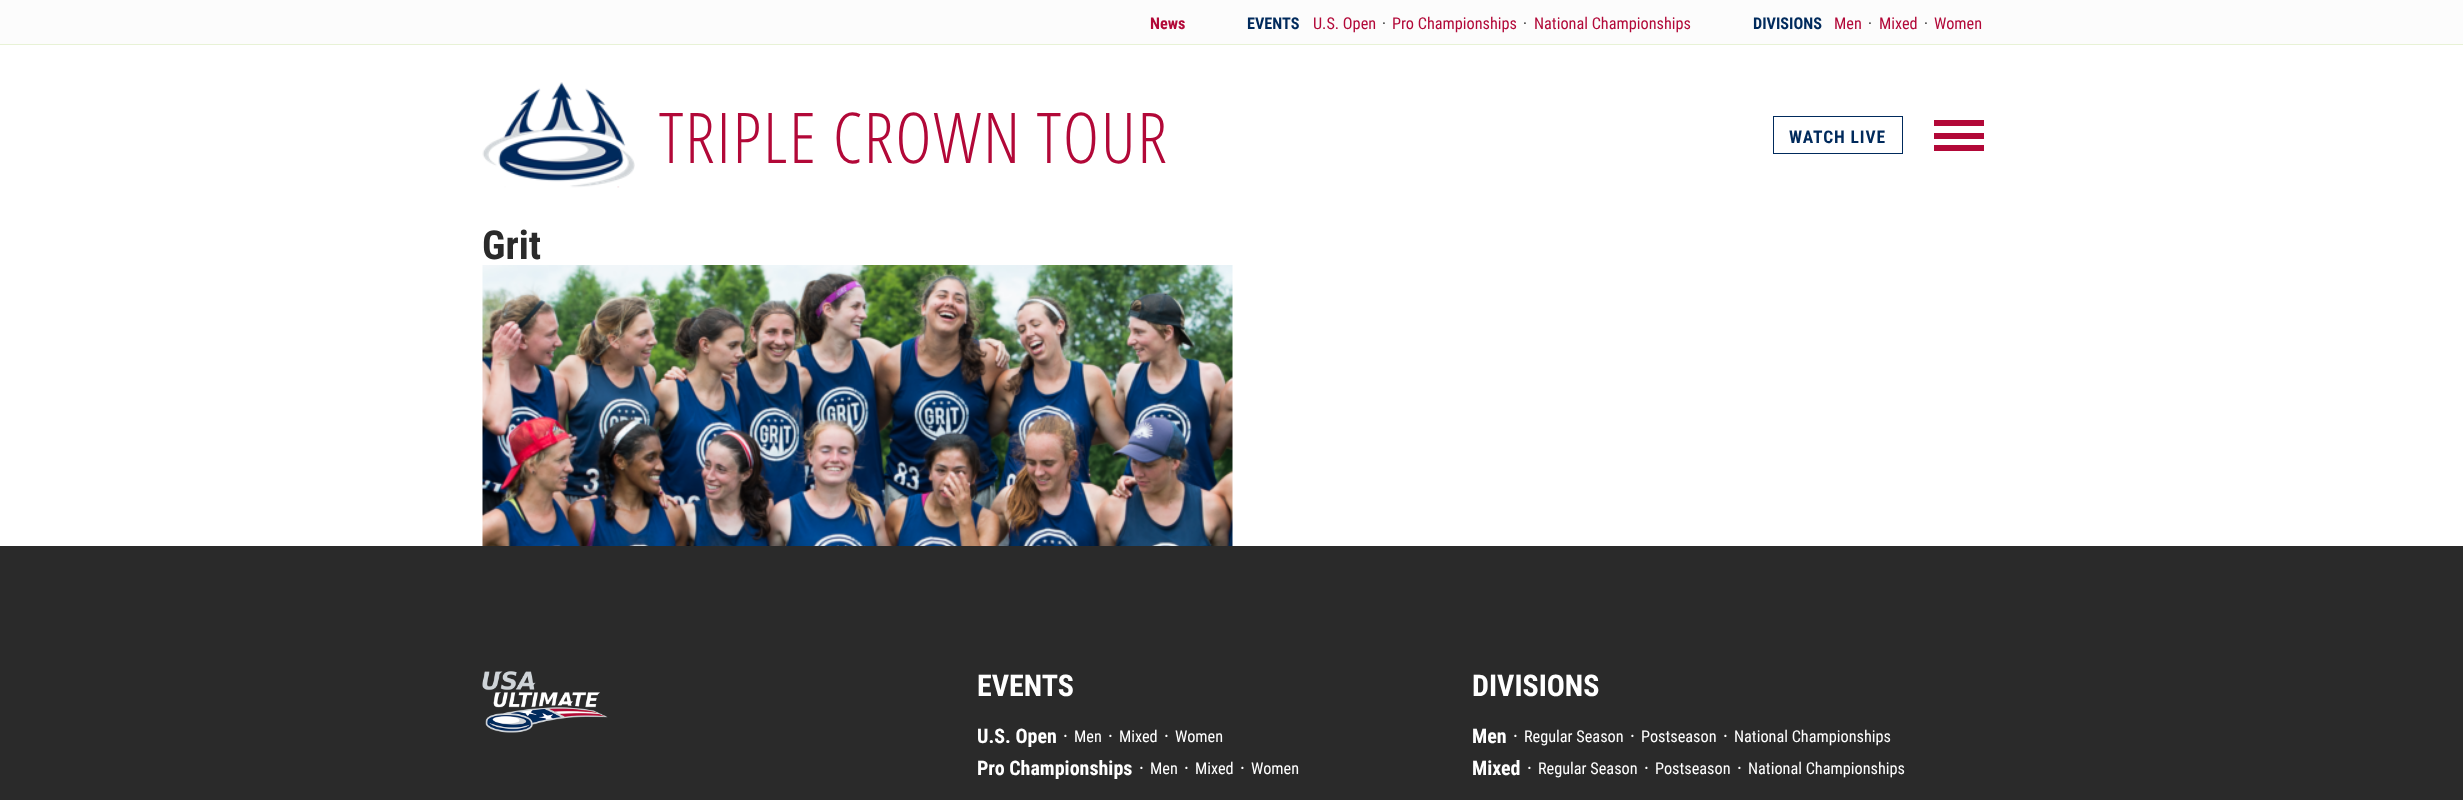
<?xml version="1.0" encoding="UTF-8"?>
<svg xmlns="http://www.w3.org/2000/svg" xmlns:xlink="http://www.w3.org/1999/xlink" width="2463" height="800">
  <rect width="100%" height="100%" fill="#ffffff" />
  <rect width="2463" height="44" fill="#fcfcfc" />
  <rect y="44" width="2463" height="1" fill="#e8f2d6" />
  <image x="482" y="82" width="153" height="106" xlink:href="image1.png" />
  <rect x="1773.5" y="116.5" width="129" height="37" fill="none" stroke="#002a5c" />
  <rect x="1934" y="133" width="50" height="6" fill="#b20838" />
  <rect x="1934" y="120" width="50" height="6" fill="#b20838" />
  <rect x="1934" y="145" width="50" height="6" fill="#b20838" />
  <image x="482" y="265" width="751" height="281" xlink:href="image2.png" />
  <rect y="546" width="2463" height="254" fill="#2a2a2a" />
  <image x="482" y="671" width="126" height="62" xlink:href="image3.png" />
  <text x="1150" y="29" style="font-family: Roboto Condensed; font-size: 16.25px; font-weight: bold; fill: #b20838">News</text>
  <text x="1247" y="29" style="font-family: Roboto Condensed; font-size: 16.25px; font-weight: bold; fill: #002a5c">EVENTS</text>
  <text x="1313" y="29" style="font-family: Roboto Condensed; font-size: 16.25px; fill: #b20838">U.S. Open</text>
  <text x="1382" y="29" style="font-family: Roboto Condensed; font-size: 16.25px; fill: #2a2a2a">·</text>
  <text x="1392" y="29" style="font-family: Roboto Condensed; font-size: 16.25px; fill: #b20838">Pro Championships</text>
  <text x="1523" y="29" style="font-family: Roboto Condensed; font-size: 16.25px; fill: #2a2a2a">·</text>
  <text x="1534" y="29" style="font-family: Roboto Condensed; font-size: 16.25px; fill: #b20838">National Championships</text>
  <text x="1753" y="29" style="font-family: Roboto Condensed; font-size: 16.25px; font-weight: bold; fill: #002a5c">DIVISIONS</text>
  <text x="1834" y="29" style="font-family: Roboto Condensed; font-size: 16.25px; fill: #b20838">Men</text>
  <text x="1868" y="29" style="font-family: Roboto Condensed; font-size: 16.25px; fill: #2a2a2a">·</text>
  <text x="1879" y="29" style="font-family: Roboto Condensed; font-size: 16.25px; fill: #b20838">Mixed</text>
  <text x="1924" y="29" style="font-family: Roboto Condensed; font-size: 16.25px; fill: #2a2a2a">·</text>
  <text x="1934" y="29" style="font-family: Roboto Condensed; font-size: 16.25px; fill: #b20838">Women</text>
  <text x="659" y="163" style="font-family: Open Sans Condensed; font-size: 70px; font-weight: 300; letter-spacing: 1.75px; fill: #b20838">TRIPLE CROWN TOUR</text>
  <text x="1789" y="143" style="font-family: Roboto Condensed; font-size: 17.5px; font-weight: bold; letter-spacing: 0.9px; fill: #002a5c">WATCH LIVE</text>
  <text x="482" y="259" style="font-family: Roboto Condensed; font-size: 40px; font-weight: bold; fill: #2a2a2a">Grit</text>
  <text x="977" y="696" style="font-family: Roboto Condensed; font-size: 30px; font-weight: bold; fill: #ffffff">EVENTS</text>
  <text x="977" y="743" style="font-family: Roboto Condensed; font-size: 20px; font-weight: bold; fill: #ffffff">U.S. Open</text>
  <text x="1063" y="743" style="font-family: Roboto Condensed; font-size: 20px; fill: #ffffff">·</text>
  <text x="1074" y="742" style="font-family: Roboto Condensed; font-size: 16.25px; fill: #ffffff">Men</text>
  <text x="1108" y="743" style="font-family: Roboto Condensed; font-size: 20px; fill: #ffffff">·</text>
  <text x="1119" y="742" style="font-family: Roboto Condensed; font-size: 16.25px; fill: #ffffff">Mixed</text>
  <text x="1164" y="743" style="font-family: Roboto Condensed; font-size: 20px; fill: #ffffff">·</text>
  <text x="1175" y="742" style="font-family: Roboto Condensed; font-size: 16.25px; fill: #ffffff">Women</text>
  <text x="977" y="775" style="font-family: Roboto Condensed; font-size: 20px; font-weight: bold; fill: #ffffff">Pro Championships</text>
  <text x="1139" y="775" style="font-family: Roboto Condensed; font-size: 20px; fill: #ffffff">·</text>
  <text x="1150" y="774" style="font-family: Roboto Condensed; font-size: 16.25px; fill: #ffffff">Men</text>
  <text x="1184" y="775" style="font-family: Roboto Condensed; font-size: 20px; fill: #ffffff">·</text>
  <text x="1195" y="774" style="font-family: Roboto Condensed; font-size: 16.25px; fill: #ffffff">Mixed</text>
  <text x="1240" y="775" style="font-family: Roboto Condensed; font-size: 20px; fill: #ffffff">·</text>
  <text x="1251" y="774" style="font-family: Roboto Condensed; font-size: 16.25px; fill: #ffffff">Women</text>
  <text x="1472" y="696" style="font-family: Roboto Condensed; font-size: 30px; font-weight: bold; fill: #ffffff">DIVISIONS</text>
  <text x="1472" y="743" style="font-family: Roboto Condensed; font-size: 20px; font-weight: bold; fill: #ffffff">Men</text>
  <text x="1513" y="743" style="font-family: Roboto Condensed; font-size: 20px; fill: #ffffff">·</text>
  <text x="1524" y="742" style="font-family: Roboto Condensed; font-size: 16.25px; fill: #ffffff">Regular Season</text>
  <text x="1630" y="743" style="font-family: Roboto Condensed; font-size: 20px; fill: #ffffff">·</text>
  <text x="1641" y="742" style="font-family: Roboto Condensed; font-size: 16.25px; fill: #ffffff">Postseason</text>
  <text x="1723" y="743" style="font-family: Roboto Condensed; font-size: 20px; fill: #ffffff">·</text>
  <text x="1734" y="742" style="font-family: Roboto Condensed; font-size: 16.25px; fill: #ffffff">National Championships</text>
  <text x="1472" y="775" style="font-family: Roboto Condensed; font-size: 20px; font-weight: bold; fill: #ffffff">Mixed</text>
  <text x="1527" y="775" style="font-family: Roboto Condensed; font-size: 20px; fill: #ffffff">·</text>
  <text x="1538" y="774" style="font-family: Roboto Condensed; font-size: 16.25px; fill: #ffffff">Regular Season</text>
  <text x="1644" y="775" style="font-family: Roboto Condensed; font-size: 20px; fill: #ffffff">·</text>
  <text x="1655" y="774" style="font-family: Roboto Condensed; font-size: 16.25px; fill: #ffffff">Postseason</text>
  <text x="1737" y="775" style="font-family: Roboto Condensed; font-size: 20px; fill: #ffffff">·</text>
  <text x="1748" y="774" style="font-family: Roboto Condensed; font-size: 16.25px; fill: #ffffff">National Championships</text>
</svg>
